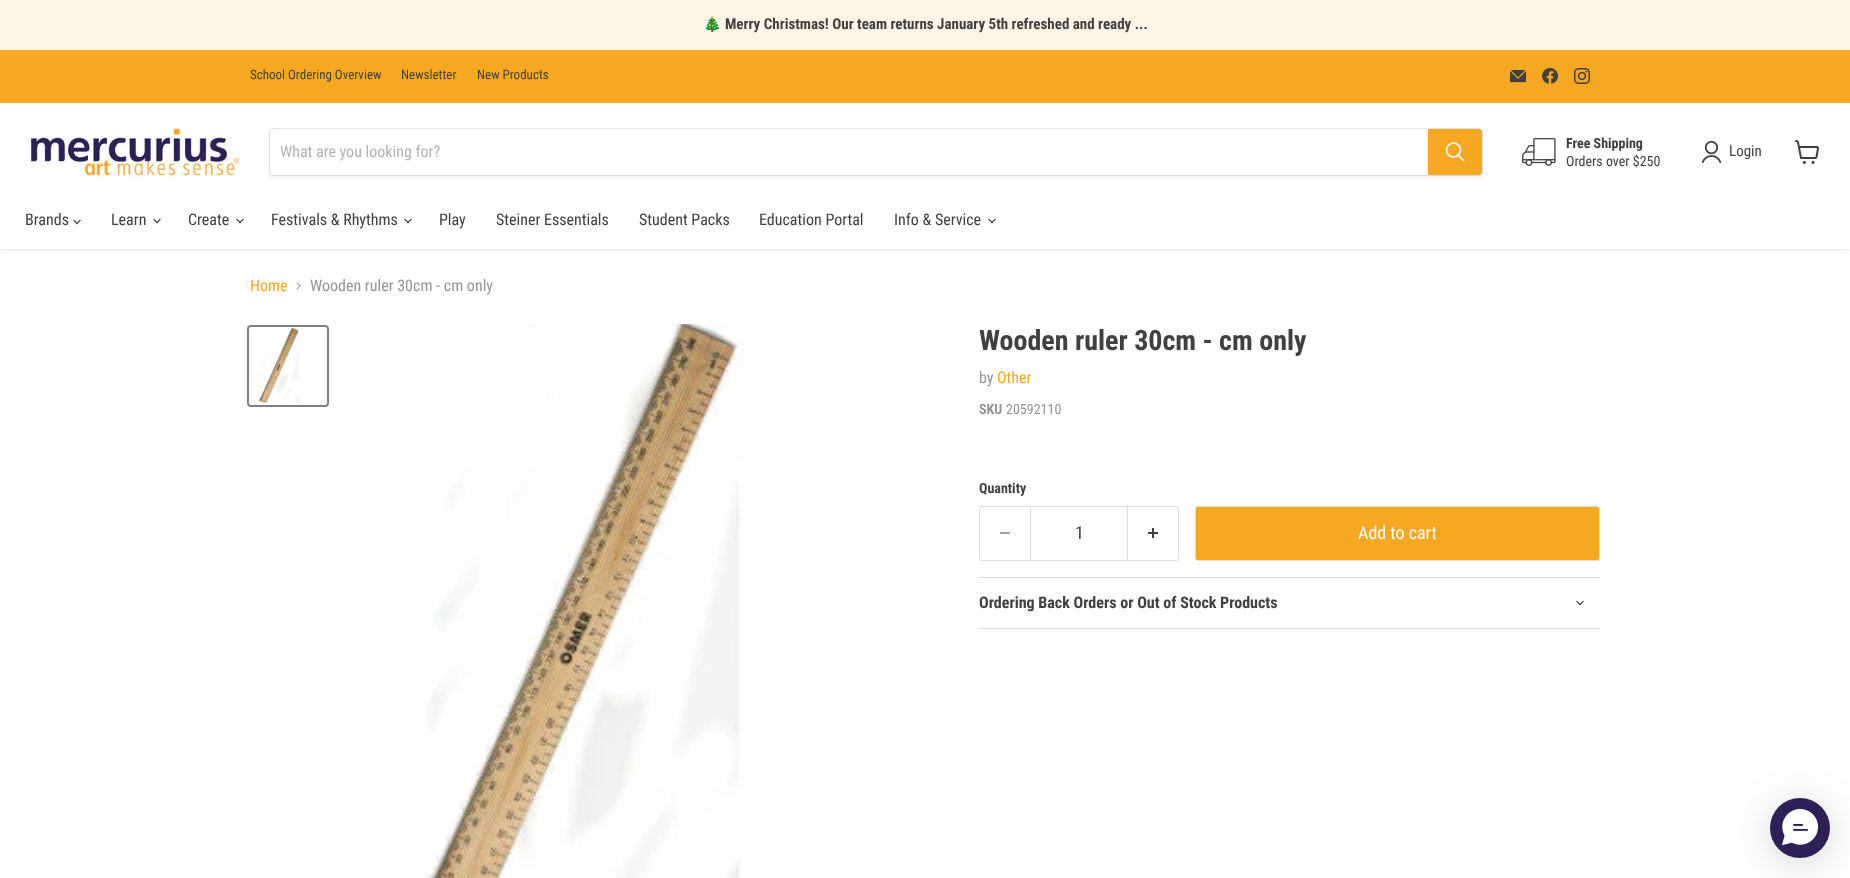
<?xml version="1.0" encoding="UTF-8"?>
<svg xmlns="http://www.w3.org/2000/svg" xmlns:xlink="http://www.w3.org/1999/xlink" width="1850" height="878">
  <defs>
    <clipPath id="clip1"><rect x="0" y="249" width="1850" height="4" /></clipPath>
  </defs>
  <rect width="100%" height="100%" fill="#ffffff" />
  <rect width="1850" height="50" fill="#fef5e8" />
  <g clip-path="url(#clip1)">
    <rect y="104" width="1850" height="146" fill="#808080" fill-opacity="0.25" filter="blur(2px)" />
  </g>
  <rect y="50" width="1850" height="53" fill="#f7a823" />
  <image x="1510" y="70" width="16" height="13" xlink:href="image1.png" />
  <image x="1542" y="68" width="16" height="16" xlink:href="image2.png" />
  <image x="1574" y="68" width="16" height="16" xlink:href="image3.png" />
  <image x="31" y="128" width="209" height="53" xlink:href="image4.png" />
  <rect x="269" y="130" width="1214" height="48" rx="4" fill="#808080" fill-opacity="0.11" filter="blur(1.5px)" />
  <rect x="269.5" y="128.5" width="1213" height="47" rx="3.5" fill="none" stroke="#808080" stroke-opacity="0.2" />
  <path d="M 273 129 h 1155 v 46 h -1155 c -1.5 0 -3 -1.5 -3 -3 v -40 c 0 -1.5 1.5 -3 3 -3 z" fill="#ffffff" />
  <path d="M 1428.5 129.5 h 50.5 c 1.5 0 2.5 1 2.5 2.5 v 40 c 0 1.5 -1 2.5 -2.5 2.5 h -50.5 z" fill="#f7a823" stroke="#f7a823" />
  <path d="M 1463.5 160.5 l -5 -5" fill="none" stroke="#ffffff" stroke-width="1.7" stroke-linecap="round" />
  <circle cx="1453.5" cy="150" r="7" fill="none" stroke="#ffffff" stroke-width="1.7" />
  <image x="1522" y="138" width="34" height="28" xlink:href="image5.png" />
  <image x="1701" y="140" width="20" height="24" xlink:href="image6.png" />
  <image x="1795" y="140" width="24" height="24" xlink:href="image7.png" />
  <image x="73" y="219" width="8" height="6" xlink:href="image8.png" />
  <image x="153" y="218" width="8" height="6" xlink:href="image8.png" />
  <image x="236" y="218" width="8" height="6" xlink:href="image8.png" />
  <image x="404" y="218" width="8" height="6" xlink:href="image8.png" />
  <image x="988" y="218" width="8" height="6" xlink:href="image8.png" />
  <image x="296" y="282" width="5" height="8" xlink:href="image9.png" />
  <rect x="248" y="326" width="80" height="80" rx="3" fill="none" stroke="#818181" stroke-width="2" />
  <image x="258" y="328" width="42" height="75" xlink:href="image10.png" />
  <image x="425" y="324" width="320" height="554" xlink:href="image11.png" />
  <path d="M 982 506 h 48 v 55 h -48 c -2 0 -3 -1 -3 -3 v -49 c 0 -2 1 -3 3 -3 z m 0 1 h 48 v 53 h -40 c -4 0 -10 1 -10 -2 v -50 z" fill="#dddddd" fill-rule="evenodd" />
  <rect x="1000" y="532" width="10" height="2" fill="#a1a09f" />
  <rect x="1030.5" y="506.5" width="97" height="54" fill="none" stroke="#dddddd" />
  <path d="M 1128 506 h 48 c 2 0 3 1 3 3 v 49 c 0 2 -1 3 -3 3 h -48 z m 0 1 h 48 c 1 0 2 1 2 2 v 49 c 0 1 -1 2 -2 2 h -48 z" fill="#dddddd" fill-rule="evenodd" />
  <image x="1148" y="528" width="10" height="10" xlink:href="image12.png" />
  <rect x="1195.5" y="506.5" width="404" height="54" rx="2.5" fill="#f7a823" stroke="#dddddd" />
  <rect x="979" y="577" width="621" height="1" fill="#dddddd" />
  <rect x="979" y="628" width="621" height="1" fill="#dddddd" />
  <image x="1576" y="600" width="8" height="6" xlink:href="image8.png" />
  <rect x="1770" y="803" width="60" height="60" rx="30" fill="#000000" fill-opacity="0.16" filter="blur(20px)" />
  <circle cx="1800" cy="828" r="30" fill="#2e2057" />
  <image x="1782" y="809" width="36" height="37" xlink:href="image13.png" />
  <text x="703" y="29" style="font-family: Noto Color Emoji; font-size: 15px; font-weight: bold; fill: #42403e">🎄</text>
  <text x="725" y="29" style="font-family: Roboto Condensed; font-size: 15px; font-weight: bold; fill: #42403e">Merry Christmas! Our team returns January 5th refreshed and ready ...</text>
  <text x="250" y="79" style="font-family: Roboto Condensed; font-size: 13px; fill: #42403e">School Ordering Overview</text>
  <text x="401" y="79" style="font-family: Roboto Condensed; font-size: 13px; fill: #42403e">Newsletter</text>
  <text x="477" y="79" style="font-family: Roboto Condensed; font-size: 13px; fill: #42403e">New Products</text>
  <text x="280" y="157" style="font-family: Roboto Condensed; font-size: 16px; fill: #b3b3b2">What are you looking for?</text>
  <text x="1566" y="148" style="font-family: Roboto Condensed; font-size: 14px; font-weight: bold; fill: #42403e">Free Shipping</text>
  <text x="1566" y="166" style="font-family: Roboto Condensed; font-size: 14px; fill: #42403e">Orders over $250</text>
  <text x="1729" y="156" style="font-family: Roboto Condensed; font-size: 15px; fill: #42403e">Login</text>
  <text x="25" y="225" style="font-family: Roboto Condensed; font-size: 16px; fill: #42403e">Brands</text>
  <text x="111" y="225" style="font-family: Roboto Condensed; font-size: 16px; fill: #42403e">Learn</text>
  <text x="188" y="225" style="font-family: Roboto Condensed; font-size: 16px; fill: #42403e">Create</text>
  <text x="271" y="225" style="font-family: Roboto Condensed; font-size: 16px; fill: #42403e">Festivals &amp; Rhythms</text>
  <text x="439" y="225" style="font-family: Roboto Condensed; font-size: 16px; fill: #42403e">Play</text>
  <text x="496" y="225" style="font-family: Roboto Condensed; font-size: 16px; fill: #42403e">Steiner Essentials</text>
  <text x="639" y="225" style="font-family: Roboto Condensed; font-size: 16px; fill: #42403e">Student Packs</text>
  <text x="759" y="225" style="font-family: Roboto Condensed; font-size: 16px; fill: #42403e">Education Portal</text>
  <text x="894" y="225" style="font-family: Roboto Condensed; font-size: 16px; fill: #42403e">Info &amp; Service</text>
  <text x="250" y="291" style="font-family: Roboto Condensed; font-size: 16px; fill: #f7a823">Home</text>
  <text x="310" y="291" style="font-family: Roboto Condensed; font-size: 16px; fill: #949494">Wooden ruler 30cm - cm only</text>
  <text x="979" y="350" style="font-family: Roboto Condensed; font-size: 28px; font-weight: bold; fill: #42403e">Wooden ruler 30cm - cm only</text>
  <text x="979" y="383" style="font-family: Roboto Condensed; font-size: 16px; fill: #949494">by</text>
  <text x="997" y="383" style="font-family: Roboto Condensed; font-size: 16px; fill: #f7a823">Other</text>
  <text x="979" y="414" style="font-family: Roboto Condensed; font-size: 14px; font-weight: bold; fill: #949494">SKU</text>
  <text x="1006" y="414" style="font-family: Roboto Condensed; font-size: 14px; fill: #949494">20592110</text>
  <text x="979" y="493" style="font-family: Roboto Condensed; font-size: 14px; font-weight: bold; fill: #42403e">Quantity</text>
  <text x="1075" y="539" style="font-family: Roboto Condensed; font-size: 18px; fill: #42403e">1</text>
  <text x="1358" y="539" style="font-family: Roboto Condensed; font-size: 18px; fill: #ffffff">Add to cart</text>
  <text x="979" y="608" style="font-family: Roboto Condensed; font-size: 16px; font-weight: bold; fill: #42403e">Ordering Back Orders or Out of Stock Products</text>
</svg>
